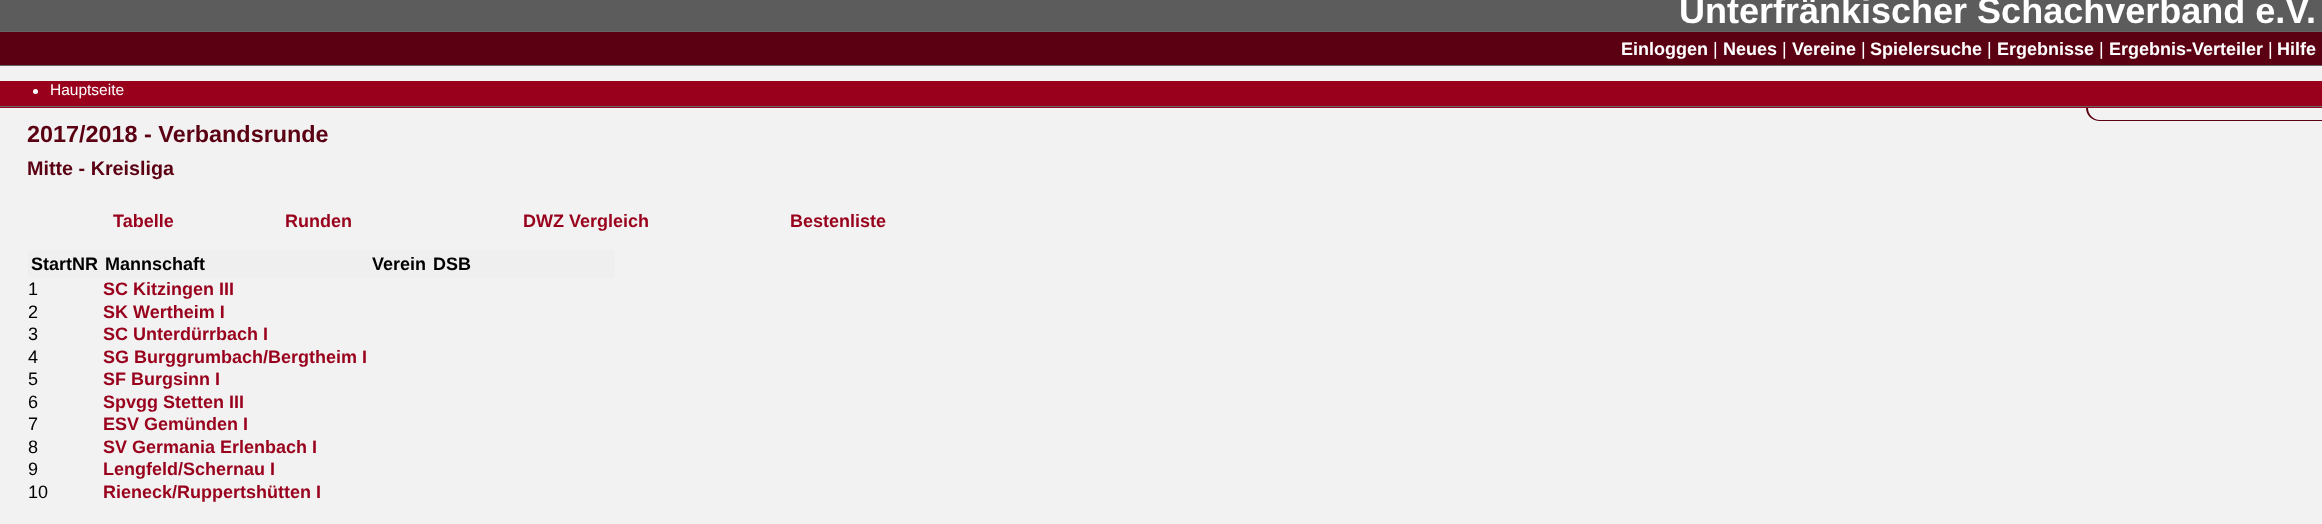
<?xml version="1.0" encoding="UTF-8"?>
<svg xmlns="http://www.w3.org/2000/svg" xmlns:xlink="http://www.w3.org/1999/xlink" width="2322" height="524">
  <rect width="100%" height="100%" fill="#f2f2f2" />
  <rect width="2322" height="31" fill="#5c5c5c" />
  <rect y="32" width="2322" height="33" fill="#5b0013" />
  <rect y="31" width="2322" height="1" fill="#666666" />
  <rect y="65" width="2322" height="1" fill="#666666" />
  <rect y="81" width="2322" height="27" fill="#99001c" />
  <rect y="106" width="2322" height="1" fill="#666666" />
  <circle cx="35.5" cy="91.5" r="2.5" fill="#ffffff" />
  <path d="M 2086 108 h 236 v 13 h -222 c -8 0 -14 -6 -14 -13 z m 2 0 h 234 v 12 h -222 c -7 0 -12 -6 -12 -12 z" fill="#5b0013" fill-rule="evenodd" />
  <rect x="28" y="250" width="587" height="28" fill="#efefef" />
  <text x="1679" y="23" style="font-family: Liberation Sans; font-size: 36px; font-weight: bold; fill: #ffffff">Unterfränkischer Schachverband e.V.</text>
  <text x="1621" y="55" style="font-family: Liberation Sans; font-size: 18px; font-weight: bold; fill: #ffffff">Einloggen</text>
  <text x="1713" y="55" style="font-family: Liberation Sans; font-size: 18px; fill: #ffffff">|</text>
  <text x="1723" y="55" style="font-family: Liberation Sans; font-size: 18px; font-weight: bold; fill: #ffffff">Neues</text>
  <text x="1782" y="55" style="font-family: Liberation Sans; font-size: 18px; fill: #ffffff">|</text>
  <text x="1792" y="55" style="font-family: Liberation Sans; font-size: 18px; font-weight: bold; fill: #ffffff">Vereine</text>
  <text x="1861" y="55" style="font-family: Liberation Sans; font-size: 18px; fill: #ffffff">|</text>
  <text x="1870" y="55" style="font-family: Liberation Sans; font-size: 18px; font-weight: bold; fill: #ffffff">Spielersuche</text>
  <text x="1987" y="55" style="font-family: Liberation Sans; font-size: 18px; fill: #ffffff">|</text>
  <text x="1997" y="55" style="font-family: Liberation Sans; font-size: 18px; font-weight: bold; fill: #ffffff">Ergebnisse</text>
  <text x="2099" y="55" style="font-family: Liberation Sans; font-size: 18px; fill: #ffffff">|</text>
  <text x="2109" y="55" style="font-family: Liberation Sans; font-size: 18px; font-weight: bold; fill: #ffffff">Ergebnis-Verteiler</text>
  <text x="2268" y="55" style="font-family: Liberation Sans; font-size: 18px; fill: #ffffff">|</text>
  <text x="2277" y="55" style="font-family: Liberation Sans; font-size: 18px; font-weight: bold; fill: #ffffff">Hilfe</text>
  <text x="50" y="95" style="font-family: Liberation Sans; font-size: 15.5px; fill: #ffffff">Hauptseite</text>
  <text x="27" y="142" style="font-family: Liberation Sans; font-size: 23.4px; font-weight: bold; fill: #5b0013">2017/2018 - Verbandsrunde</text>
  <text x="27" y="175" style="font-family: Liberation Sans; font-size: 19.75px; font-weight: bold; fill: #5b0013">Mitte - Kreisliga</text>
  <text x="113" y="227" style="font-family: Liberation Sans; font-size: 18px; font-weight: bold; fill: #99001c">Tabelle</text>
  <text x="285" y="227" style="font-family: Liberation Sans; font-size: 18px; font-weight: bold; fill: #99001c">Runden</text>
  <text x="523" y="227" style="font-family: Liberation Sans; font-size: 18px; font-weight: bold; fill: #99001c">DWZ Vergleich</text>
  <text x="790" y="227" style="font-family: Liberation Sans; font-size: 18px; font-weight: bold; fill: #99001c">Bestenliste</text>
  <text x="31" y="270" style="font-family: Liberation Sans; font-size: 18px; font-weight: bold; fill: #000000">StartNR</text>
  <text x="105" y="270" style="font-family: Liberation Sans; font-size: 18px; font-weight: bold; fill: #000000">Mannschaft</text>
  <text x="372" y="270" style="font-family: Liberation Sans; font-size: 18px; font-weight: bold; fill: #000000">Verein</text>
  <text x="433" y="270" style="font-family: Liberation Sans; font-size: 18px; font-weight: bold; fill: #000000">DSB</text>
  <text x="28" y="295" style="font-family: Liberation Sans; font-size: 18px; fill: #000000">1</text>
  <text x="103" y="295" style="font-family: Liberation Sans; font-size: 18px; font-weight: bold; fill: #99001c">SC Kitzingen III</text>
  <text x="28" y="318" style="font-family: Liberation Sans; font-size: 18px; fill: #000000">2</text>
  <text x="103" y="318" style="font-family: Liberation Sans; font-size: 18px; font-weight: bold; fill: #99001c">SK Wertheim I</text>
  <text x="28" y="340" style="font-family: Liberation Sans; font-size: 18px; fill: #000000">3</text>
  <text x="103" y="340" style="font-family: Liberation Sans; font-size: 18px; font-weight: bold; fill: #99001c">SC Unterdürrbach I</text>
  <text x="28" y="363" style="font-family: Liberation Sans; font-size: 18px; fill: #000000">4</text>
  <text x="103" y="363" style="font-family: Liberation Sans; font-size: 18px; font-weight: bold; fill: #99001c">SG Burggrumbach/Bergtheim I</text>
  <text x="28" y="385" style="font-family: Liberation Sans; font-size: 18px; fill: #000000">5</text>
  <text x="103" y="385" style="font-family: Liberation Sans; font-size: 18px; font-weight: bold; fill: #99001c">SF Burgsinn I</text>
  <text x="28" y="408" style="font-family: Liberation Sans; font-size: 18px; fill: #000000">6</text>
  <text x="103" y="408" style="font-family: Liberation Sans; font-size: 18px; font-weight: bold; fill: #99001c">Spvgg Stetten III</text>
  <text x="28" y="430" style="font-family: Liberation Sans; font-size: 18px; fill: #000000">7</text>
  <text x="103" y="430" style="font-family: Liberation Sans; font-size: 18px; font-weight: bold; fill: #99001c">ESV Gemünden I</text>
  <text x="28" y="453" style="font-family: Liberation Sans; font-size: 18px; fill: #000000">8</text>
  <text x="103" y="453" style="font-family: Liberation Sans; font-size: 18px; font-weight: bold; fill: #99001c">SV Germania Erlenbach I</text>
  <text x="28" y="475" style="font-family: Liberation Sans; font-size: 18px; fill: #000000">9</text>
  <text x="103" y="475" style="font-family: Liberation Sans; font-size: 18px; font-weight: bold; fill: #99001c">Lengfeld/Schernau I</text>
  <text x="28" y="498" style="font-family: Liberation Sans; font-size: 18px; fill: #000000">10</text>
  <text x="103" y="498" style="font-family: Liberation Sans; font-size: 18px; font-weight: bold; fill: #99001c">Rieneck/Ruppertshütten I</text>
</svg>
